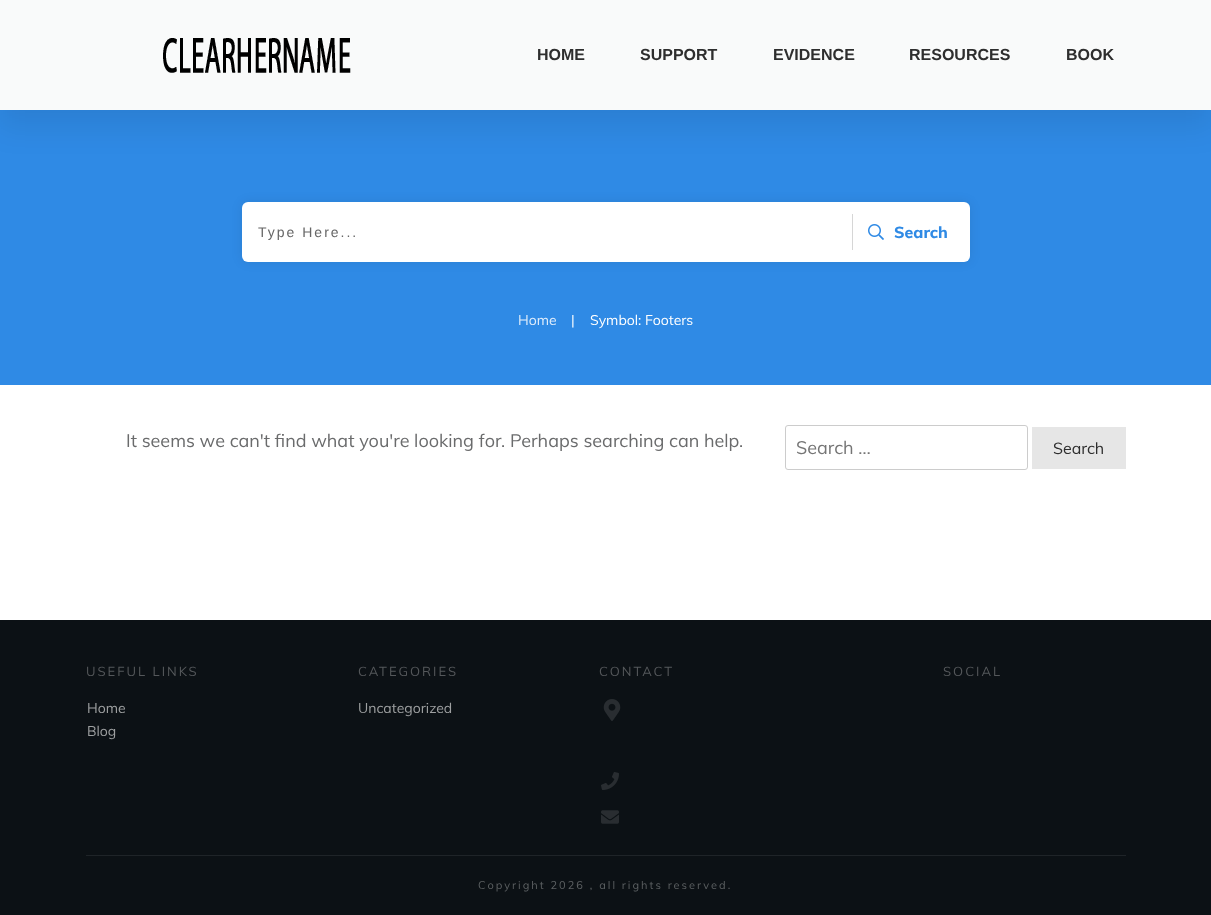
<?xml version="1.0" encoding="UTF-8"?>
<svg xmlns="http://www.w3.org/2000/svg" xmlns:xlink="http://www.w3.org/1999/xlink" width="1211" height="915">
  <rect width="100%" height="100%" fill="#ffffff" />
  <rect y="110" width="1211" height="275" fill="#2f8ae5" />
  <rect x="-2" y="13" width="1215" height="114" fill="#000000" fill-opacity="0.08" filter="blur(15px)" />
  <rect width="1211" height="110" fill="#f9fafa" />
  <image x="163" y="38" width="188" height="35" xlink:href="image1.png" />
  <rect x="242" y="202" width="728" height="60" rx="6" fill="#000000" fill-opacity="0.08" filter="blur(5.5px)" />
  <rect x="242" y="202" width="728" height="60" rx="6" fill="#ffffff" />
  <rect x="852" y="214" width="1" height="36" fill="#d6d6d6" />
  <image x="868" y="224" width="16" height="16" xlink:href="image2.png" />
  <rect x="785.5" y="425.5" width="242" height="44" rx="2.5" fill="none" stroke="#cccccc" />
  <rect x="1032" y="427" width="94" height="42" fill="#e6e6e6" />
  <rect y="620" width="1211" height="295" fill="#0c1115" />
  <rect x="86" y="855" width="1040" height="1" fill="#1f2428" />
  <image x="603" y="699" width="18" height="22" xlink:href="image3.png" />
  <image x="601" y="772" width="18" height="18" xlink:href="image4.png" />
  <image x="601" y="810" width="18" height="14" xlink:href="image5.png" />
  <text x="537" y="60" style="font-family: Liberation Sans; font-size: 16px; font-weight: bold; fill: #2e2e2e">HOME</text>
  <text x="640" y="60" style="font-family: Liberation Sans; font-size: 16px; font-weight: bold; fill: #2e2e2e">SUPPORT</text>
  <text x="773" y="60" style="font-family: Liberation Sans; font-size: 16px; font-weight: bold; fill: #2e2e2e">EVIDENCE</text>
  <text x="909" y="60" style="font-family: Liberation Sans; font-size: 16px; font-weight: bold; fill: #2e2e2e">RESOURCES</text>
  <text x="1066" y="60" style="font-family: Liberation Sans; font-size: 16px; font-weight: bold; fill: #2e2e2e">BOOK</text>
  <text x="258" y="237" style="font-family: Liberation Sans; font-size: 14px; letter-spacing: 2px; fill: #666666">Type Here...</text>
  <text x="894" y="238" style="font-family: Muli; font-size: 16px; font-weight: 800; fill: #2f8ae5">Search</text>
  <text x="518" y="325" style="font-family: Muli; font-size: 14px; fill: #e0edfb">Home</text>
  <text x="571" y="325" style="font-family: Muli; font-size: 14px; fill: #ffffff">|</text>
  <text x="590" y="325" style="font-family: Muli; font-size: 14px; fill: #ffffff">Symbol: Footers</text>
  <text x="126" y="447" style="font-family: Muli; font-size: 18px; fill: #6a6b6c">It seems we can't find what you're looking for. Perhaps searching can help.</text>
  <text x="796" y="454" style="font-family: Muli; font-size: 18px; fill: #757575">Search …</text>
  <text x="1053" y="454" style="font-family: Muli; font-size: 16px; fill: #2e2e2e">Search</text>
  <text x="86" y="676" style="font-family: Muli; font-size: 13px; letter-spacing: 2px; fill: #55585b">USEFUL LINKS</text>
  <text x="87" y="713" style="font-family: Muli; font-size: 14px; fill: #9ea0a1">Home</text>
  <text x="87" y="736" style="font-family: Muli; font-size: 14px; fill: #9ea0a1">Blog</text>
  <text x="358" y="676" style="font-family: Muli; font-size: 13px; letter-spacing: 2px; fill: #55585b">CATEGORIES</text>
  <text x="358" y="713" style="font-family: Muli; font-size: 14px; fill: #9ea0a1">Uncategorized</text>
  <text x="599" y="676" style="font-family: Muli; font-size: 13px; letter-spacing: 2px; fill: #55585b">CONTACT</text>
  <text x="943" y="676" style="font-family: Muli; font-size: 13px; letter-spacing: 2px; fill: #55585b">SOCIAL</text>
  <text x="478" y="889" style="font-family: Muli; font-size: 11px; letter-spacing: 2px; fill: #5c6062">Copyright 2026 , all rights reserved.</text>
</svg>
